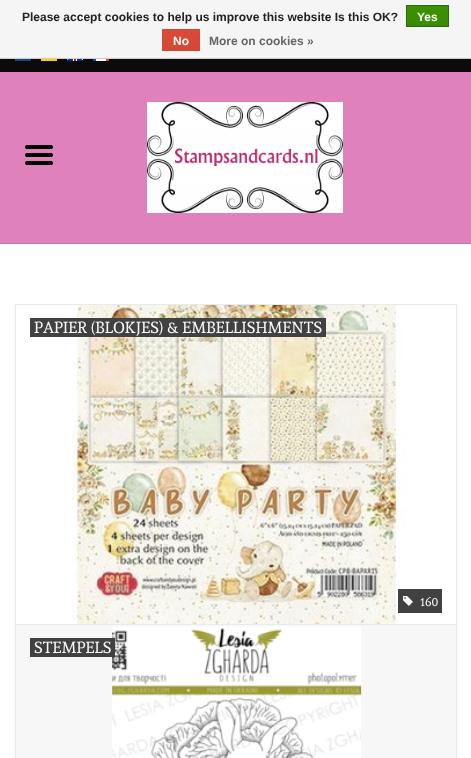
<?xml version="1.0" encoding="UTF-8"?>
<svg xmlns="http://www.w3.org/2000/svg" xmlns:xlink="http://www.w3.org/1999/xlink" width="471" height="758">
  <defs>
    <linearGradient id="g1" gradientUnits="userSpaceOnUse" x1="428" y1="6" x2="428" y2="26"><stop offset="0" stop-color="#3c9300" /><stop offset="1" stop-color="#398a00" /></linearGradient>
    <linearGradient id="g2" gradientUnits="userSpaceOnUse" x1="181" y1="30" x2="181" y2="50"><stop offset="0" stop-color="#dc4a38" /><stop offset="1" stop-color="#d14836" /></linearGradient>
  </defs>
  <rect width="100%" height="100%" fill="#df82bb" />
  <rect width="471" height="58" fill="#f5f5f5" />
  <rect y="58" width="471" height="1" fill="#cccccc" />
  <rect x="407" y="6" width="41" height="20" fill="url(#g1)" />
  <rect x="406.5" y="5.5" width="42" height="21" fill="none" stroke="#29691d" />
  <rect x="163" y="30" width="36" height="20" fill="url(#g2)" />
  <rect x="162.5" y="29.5" width="37" height="21" fill="none" stroke="#d14836" />
  <rect y="59" width="471" height="13" fill="#0b0b0b" />
  <image x="15" y="59" width="16" height="2" xlink:href="image1.png" />
  <image x="41" y="59" width="16" height="2" xlink:href="image2.png" />
  <image x="67" y="59" width="16" height="2" xlink:href="image3.png" />
  <image x="93" y="59" width="16" height="2" xlink:href="image4.png" />
  <rect y="243" width="471" height="1" fill="#cd77ac" />
  <image x="147" y="102" width="196" height="111" xlink:href="image5.png" />
  <image x="25" y="145" width="28" height="20" xlink:href="image6.png" />
  <rect y="244" width="471" height="514" fill="#ffffff" />
  <rect x="15.5" y="304.5" width="441" height="320" fill="none" stroke="#eaeaea" />
  <image x="16" y="305" width="440" height="319" xlink:href="image7.png" />
  <rect x="322" y="318" width="4" height="19" fill="#414141" />
  <rect x="30" y="318" width="292" height="19" fill="#414141" />
  <rect x="398" y="589" width="44" height="24" fill="#414141" />
  <image x="403" y="596" width="10" height="10" xlink:href="image8.png" />
  <rect x="15.5" y="624.5" width="441" height="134" fill="none" stroke="#eaeaea" />
  <rect x="16" y="625" width="440" height="133" fill="#f7f7f7" />
  <image x="112" y="626" width="250" height="132" xlink:href="image9.png" />
  <rect x="111" y="638" width="4" height="19" fill="#414141" />
  <rect x="30" y="638" width="81" height="19" fill="#414141" />
  <text x="22" y="21" style="font-family: Liberation Sans; font-size: 12px; font-weight: bold; fill: #222222">Please accept cookies to help us improve this website Is this OK?</text>
  <text x="417" y="21" style="font-family: Liberation Sans; font-size: 12px; font-weight: bold; fill: #ffffff">Yes</text>
  <text x="173" y="45" style="font-family: Liberation Sans; font-size: 12px; font-weight: bold; fill: #ffffff">No</text>
  <text x="209" y="45" style="font-family: Liberation Sans; font-size: 12px; font-weight: bold; fill: #666666">More on cookies »</text>
  <text x="34" y="333" style="font-family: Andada; font-size: 16px; fill: #f7f7f7">PAPIER (BLOKJES) &amp; EMBELLISHMENTS</text>
  <text x="420" y="606" style="font-family: Andada; font-size: 12px; fill: #f7f7f7">160</text>
  <text x="34" y="653" style="font-family: Andada; font-size: 16px; fill: #f7f7f7">STEMPELS</text>
</svg>
